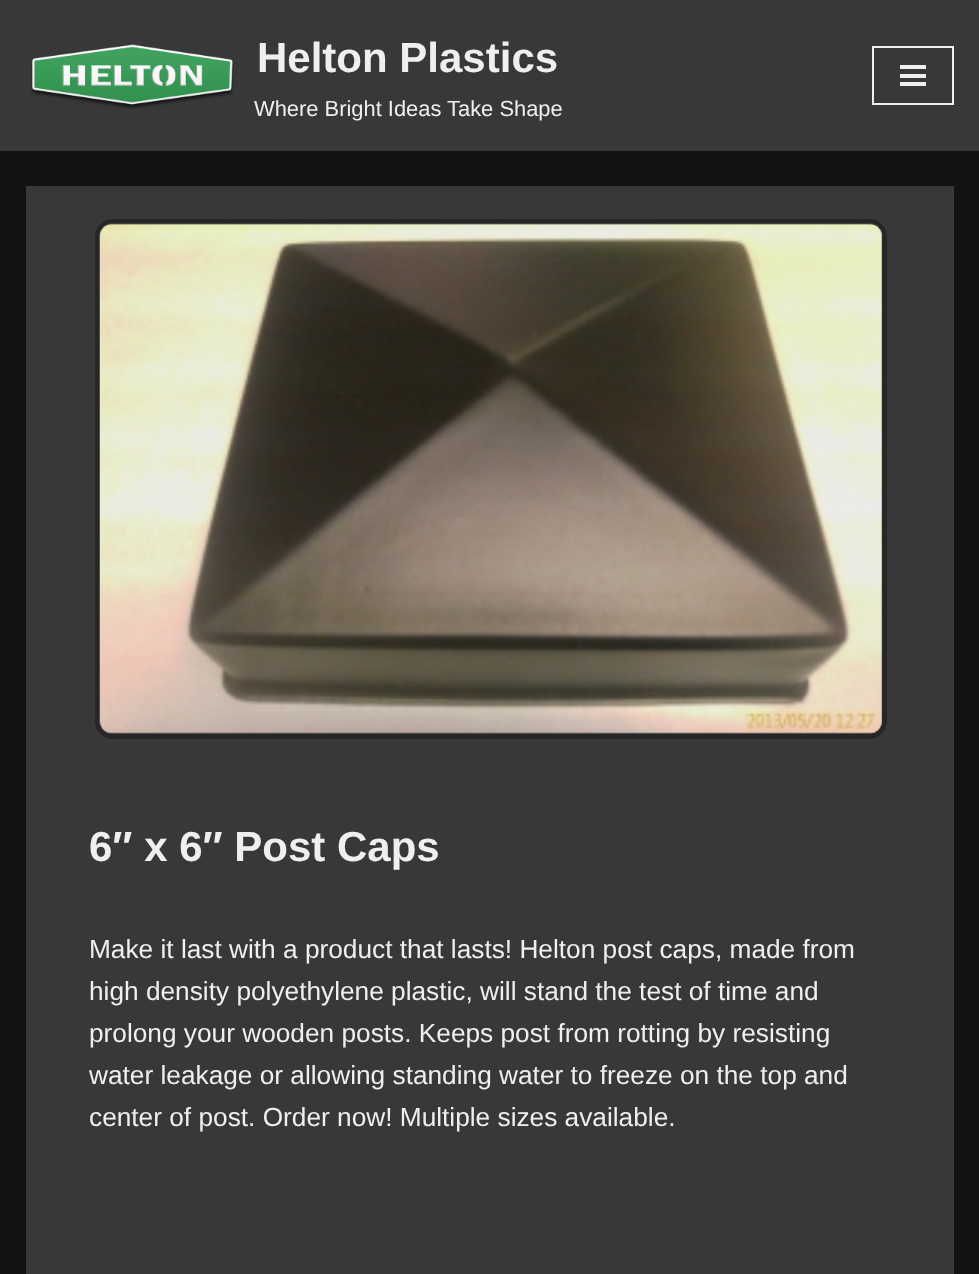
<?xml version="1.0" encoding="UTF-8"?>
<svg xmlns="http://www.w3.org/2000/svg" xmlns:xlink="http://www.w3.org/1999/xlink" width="979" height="1274">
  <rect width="100%" height="100%" fill="#121212" />
  <rect width="979" height="151" fill="#383838" />
  <image x="31" y="44" width="203" height="65" xlink:href="image1.png" />
  <rect x="873" y="47" width="80" height="57" fill="none" stroke="#efefef" stroke-width="2" />
  <rect x="900" y="65" width="26" height="4" fill="#efefef" />
  <rect x="900" y="74" width="26" height="4" fill="#efefef" />
  <rect x="900" y="82" width="26" height="4" fill="#efefef" />
  <rect x="26" y="186" width="928" height="1088" fill="#383838" />
  <rect x="97.5" y="221.5" width="787" height="515" rx="15.5" fill="none" stroke="#272626" stroke-width="5" />
  <image x="99" y="223" width="784" height="511" xlink:href="image2.png" />
  <text x="257" y="72" style="font-family: Liberation Sans; font-size: 42px; font-weight: bold; fill: #efefef">Helton Plastics</text>
  <text x="254" y="116" style="font-family: Liberation Sans; font-size: 21.9px; fill: #efefef">Where Bright Ideas Take Shape</text>
  <text x="89" y="861" style="font-family: Liberation Sans; font-size: 42px; font-weight: bold; fill: #efefef">6″ x 6″ Post Caps</text>
  <text x="89" y="958" style="font-family: Liberation Sans; font-size: 26.25px; fill: #efefef">Make it last with a product that lasts! Helton post caps, made from</text>
  <text x="89" y="1000" style="font-family: Liberation Sans; font-size: 26.25px; fill: #efefef">high density polyethylene plastic, will stand the test of time and</text>
  <text x="89" y="1042" style="font-family: Liberation Sans; font-size: 26.25px; fill: #efefef">prolong your wooden posts. Keeps post from rotting by resisting</text>
  <text x="89" y="1084" style="font-family: Liberation Sans; font-size: 26.25px; fill: #efefef">water leakage or allowing standing water to freeze on the top and</text>
  <text x="89" y="1126" style="font-family: Liberation Sans; font-size: 26.25px; fill: #efefef">center of post. Order now! Multiple sizes available.</text>
</svg>
